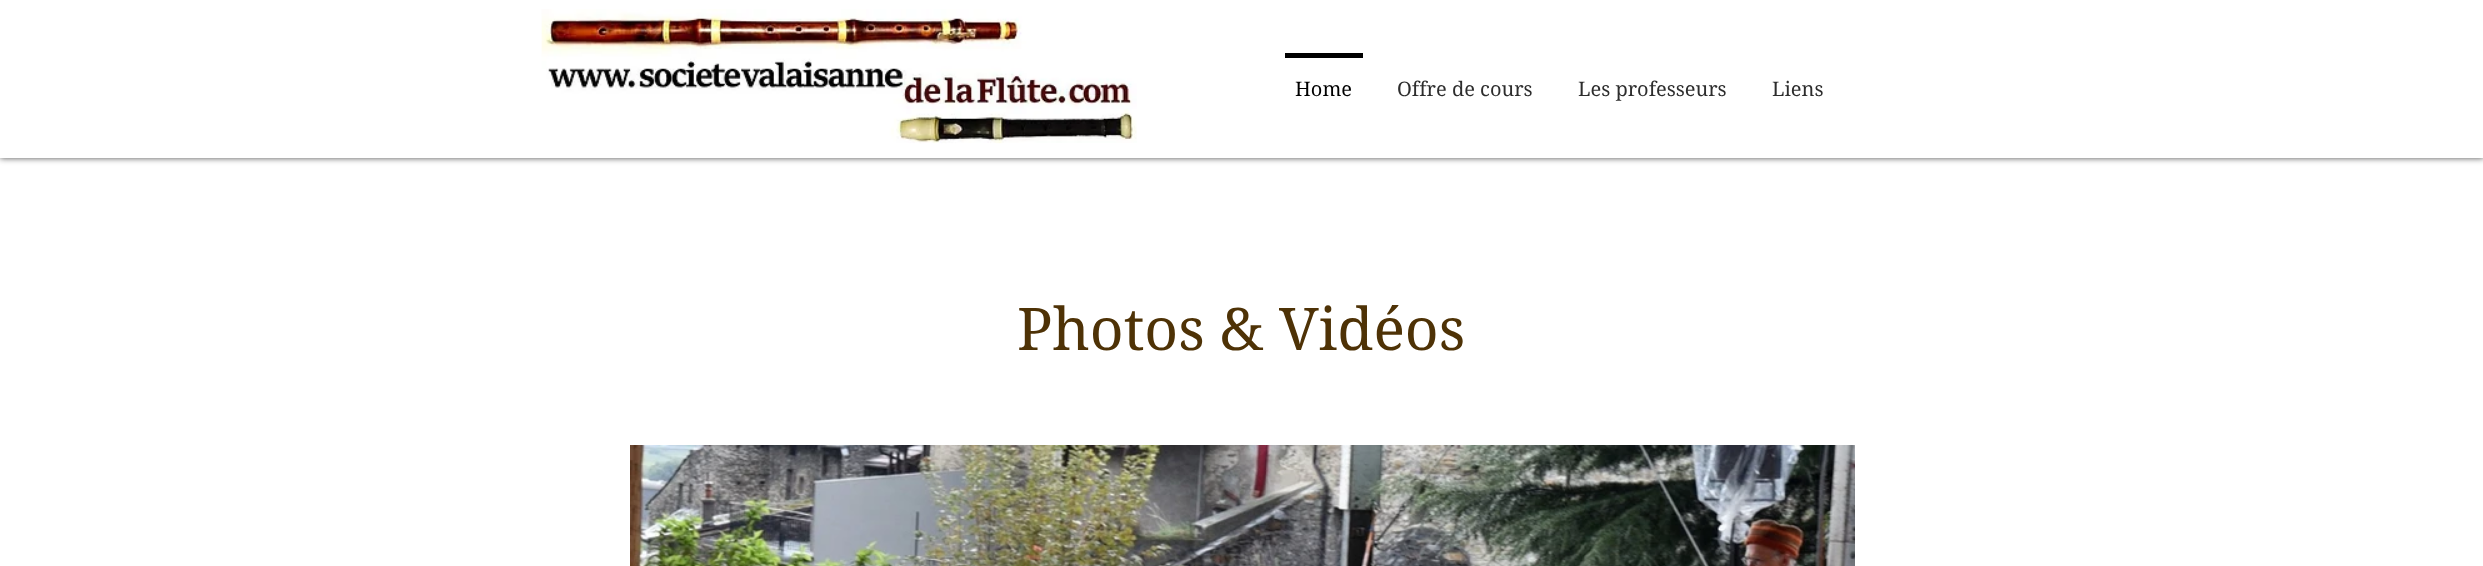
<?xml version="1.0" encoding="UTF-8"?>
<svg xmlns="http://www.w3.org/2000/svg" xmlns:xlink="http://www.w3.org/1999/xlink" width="2483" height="566">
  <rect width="100%" height="100%" fill="#ffffff" />
  <rect width="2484" height="158" fill="#000000" fill-opacity="0.7" filter="blur(3px)" />
  <rect width="2483" height="158" fill="#ffffff" />
  <image x="541" y="9" width="596" height="135" xlink:href="image1.png" />
  <rect x="1285" y="53" width="78" height="5" fill="#000000" />
  <image x="630" y="445" width="1225" height="121" xlink:href="image2.png" />
  <text x="1295" y="96" style="font-family: 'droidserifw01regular'; font-size: 20px; fill: #000000">Home</text>
  <text x="1397" y="96" style="font-family: 'droidserifw01regular'; font-size: 20px; fill: #2d2d2d">Offre de cours</text>
  <text x="1578" y="96" style="font-family: 'droidserifw01regular'; font-size: 20px; fill: #2d2d2d">Les professeurs</text>
  <text x="1772" y="96" style="font-family: 'droidserifw01regular'; font-size: 20px; fill: #2d2d2d">Liens</text>
  <text x="1017" y="350" style="font-family: 'droidserifw01regular'; font-size: 58.75px; fill: #4e3206">Photos &amp; Vidéos</text>
</svg>
